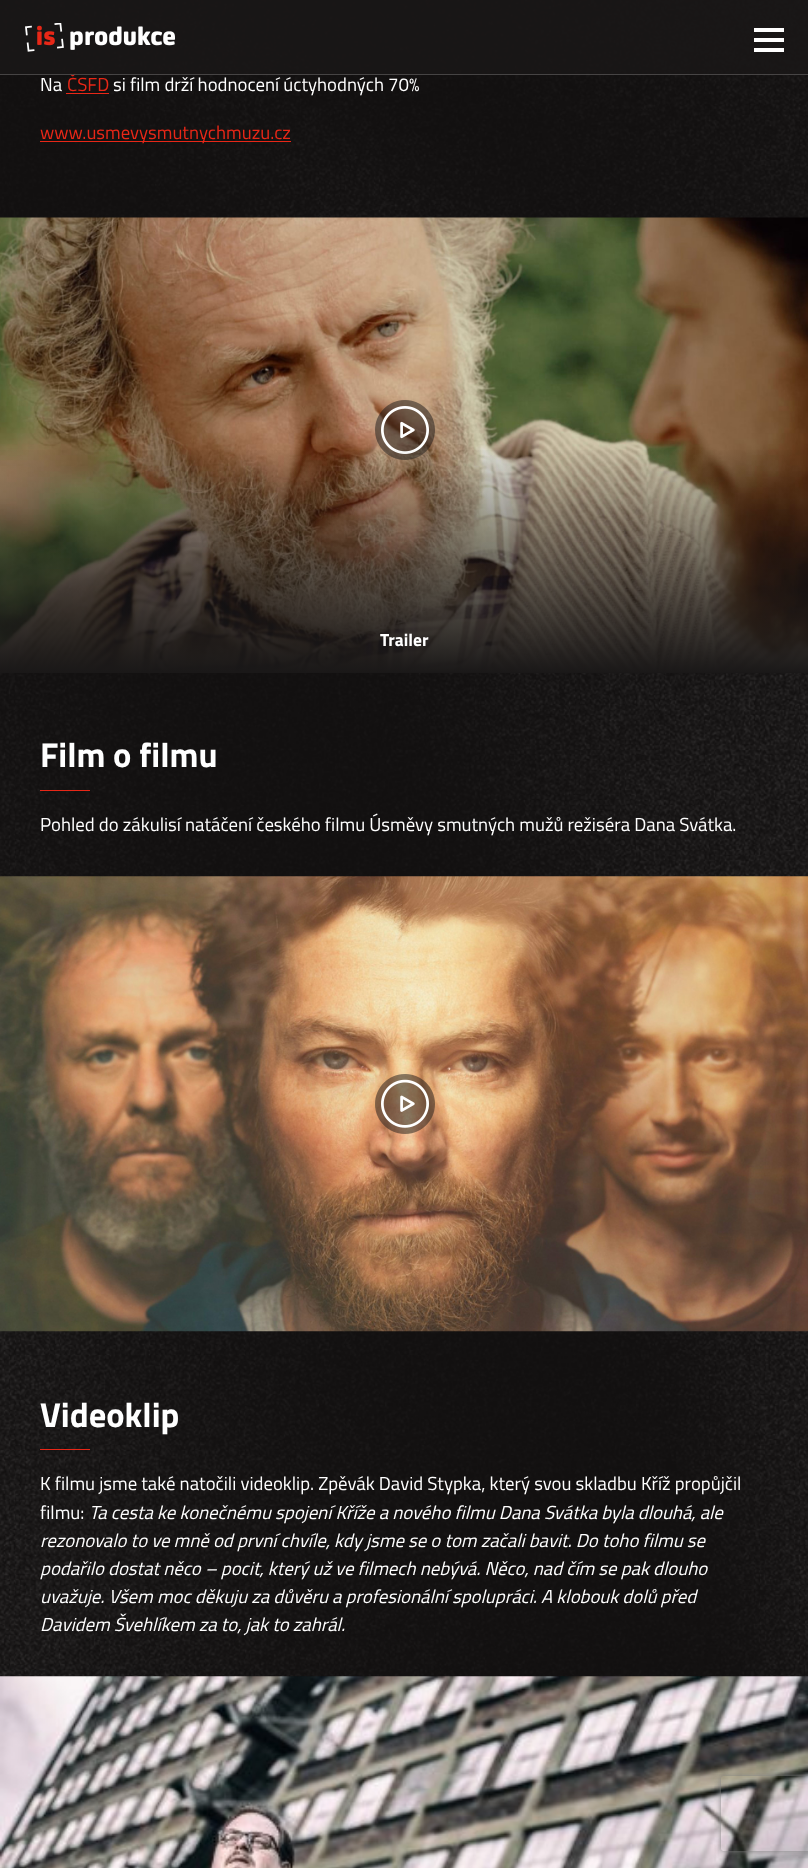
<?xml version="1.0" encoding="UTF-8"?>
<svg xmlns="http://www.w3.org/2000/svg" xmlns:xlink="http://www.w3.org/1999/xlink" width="808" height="1868">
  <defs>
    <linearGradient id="g1" gradientUnits="userSpaceOnUse" x1="404" y1="445" x2="404" y2="673"><stop offset="0" stop-color="#1a1818" stop-opacity="0" /><stop offset="1" stop-color="#1a1818" /></linearGradient>
    <clipPath id="clip1"><path d="M 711 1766 h 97 v 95 h -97 z m 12.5 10 h 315 c 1.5 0 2.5 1 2.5 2.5 v 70 c 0 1.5 -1 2.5 -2.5 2.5 h -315 c -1.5 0 -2.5 -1 -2.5 -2.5 v -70 c 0 -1.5 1 -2.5 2.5 -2.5 z" clip-rule="evenodd" /></clipPath>
  </defs>
  <rect width="100%" height="100%" fill="#1a1818" />
  <image x="0" y="0" width="808" height="1677" xlink:href="image1.png" />
  <rect x="66" y="93" width="43" height="1" fill="#e82717" />
  <rect x="40" y="141" width="251" height="1" fill="#e82717" />
  <image x="0" y="217" width="808" height="455" xlink:href="image3.png" />
  <image x="375" y="400" width="60" height="60" xlink:href="image4.png" />
  <rect y="450" width="808" height="223" fill="url(#g1)" />
  <rect x="40" y="790" width="50" height="1" fill="#e82717" />
  <image x="0" y="876" width="808" height="456" xlink:href="image5.png" />
  <image x="375" y="1074" width="60" height="60" xlink:href="image6.png" />
  <rect x="40" y="1449" width="50" height="1" fill="#e82717" />
  <image x="0" y="1676" width="808" height="192" xlink:href="image7.png" />
  <g clip-path="url(#clip1)">
    <rect x="721" y="1776" width="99" height="75" rx="2.5" fill="#808080" filter="blur(3px)" />
  </g>
  <text x="40" y="91" style="font-family: Titillium Web; font-size: 18.75px; fill: #ffffff">Na</text>
  <text x="67" y="91" style="font-family: Titillium Web; font-size: 18.75px; fill: #e82717">ČSFD</text>
  <rect width="808" height="75" fill="#1a1818" fill-opacity="0.85" />
  <rect x="754" y="48" width="30" height="4" fill="#ffffff" />
  <rect x="754" y="28" width="30" height="4" fill="#ffffff" />
  <rect x="754" y="38" width="30" height="4" fill="#ffffff" />
  <image x="25" y="23" width="150" height="29" xlink:href="image2.png" />
  <rect y="74" width="808" height="1" fill="#ffffff" fill-opacity="0.2" />
  <text x="113" y="91" style="font-family: Titillium Web; font-size: 18.75px; fill: #ffffff">si film drží hodnocení úctyhodných 70%</text>
  <text x="40" y="139" style="font-family: Titillium Web; font-size: 18.75px; fill: #e82717">www.usmevysmutnychmuzu.cz</text>
  <text x="380" y="646" style="font-family: Titillium Web; font-size: 17.5px; font-weight: bold; fill: #ffffff">Trailer</text>
  <text x="40" y="767" style="font-family: Titillium Web; font-size: 34.5px; font-weight: bold; fill: #ffffff">Film o filmu</text>
  <text x="40" y="831" style="font-family: Titillium Web; font-size: 18.75px; fill: #ffffff">Pohled do zákulisí natáčení českého filmu Úsměvy smutných mužů režiséra Dana Svátka.</text>
  <text x="40" y="1427" style="font-family: Titillium Web; font-size: 34.5px; font-weight: bold; fill: #ffffff">Videoklip</text>
  <text x="40" y="1490" style="font-family: Titillium Web; font-size: 18.75px; fill: #ffffff">K filmu jsme také natočili videoklip. Zpěvák David Stypka, který svou skladbu Kříž propůjčil</text>
  <text x="40" y="1519" style="font-family: Titillium Web; font-size: 18.75px; fill: #ffffff">filmu:</text>
  <text x="89" y="1519" style="font-family: Titillium Web; font-size: 18.75px; font-style: italic; fill: #ffffff">Ta cesta ke konečnému spojení Kříže a nového filmu Dana Svátka byla dlouhá, ale</text>
  <text x="40" y="1547" style="font-family: Titillium Web; font-size: 18.75px; font-style: italic; fill: #ffffff">rezonovalo to ve mně od první chvíle, kdy jsme se o tom začali bavit. Do toho filmu se</text>
  <text x="40" y="1575" style="font-family: Titillium Web; font-size: 18.75px; font-style: italic; fill: #ffffff">podařilo dostat něco – pocit, který už ve filmech nebývá. Něco, nad čím se pak dlouho</text>
  <text x="40" y="1603" style="font-family: Titillium Web; font-size: 18.75px; font-style: italic; fill: #ffffff">uvažuje. Všem moc děkuju za důvěru a profesionální spolupráci. A klobouk dolů před</text>
  <text x="40" y="1631" style="font-family: Titillium Web; font-size: 18.75px; font-style: italic; fill: #ffffff">Davidem Švehlíkem za to, jak to zahrál.</text>
</svg>
